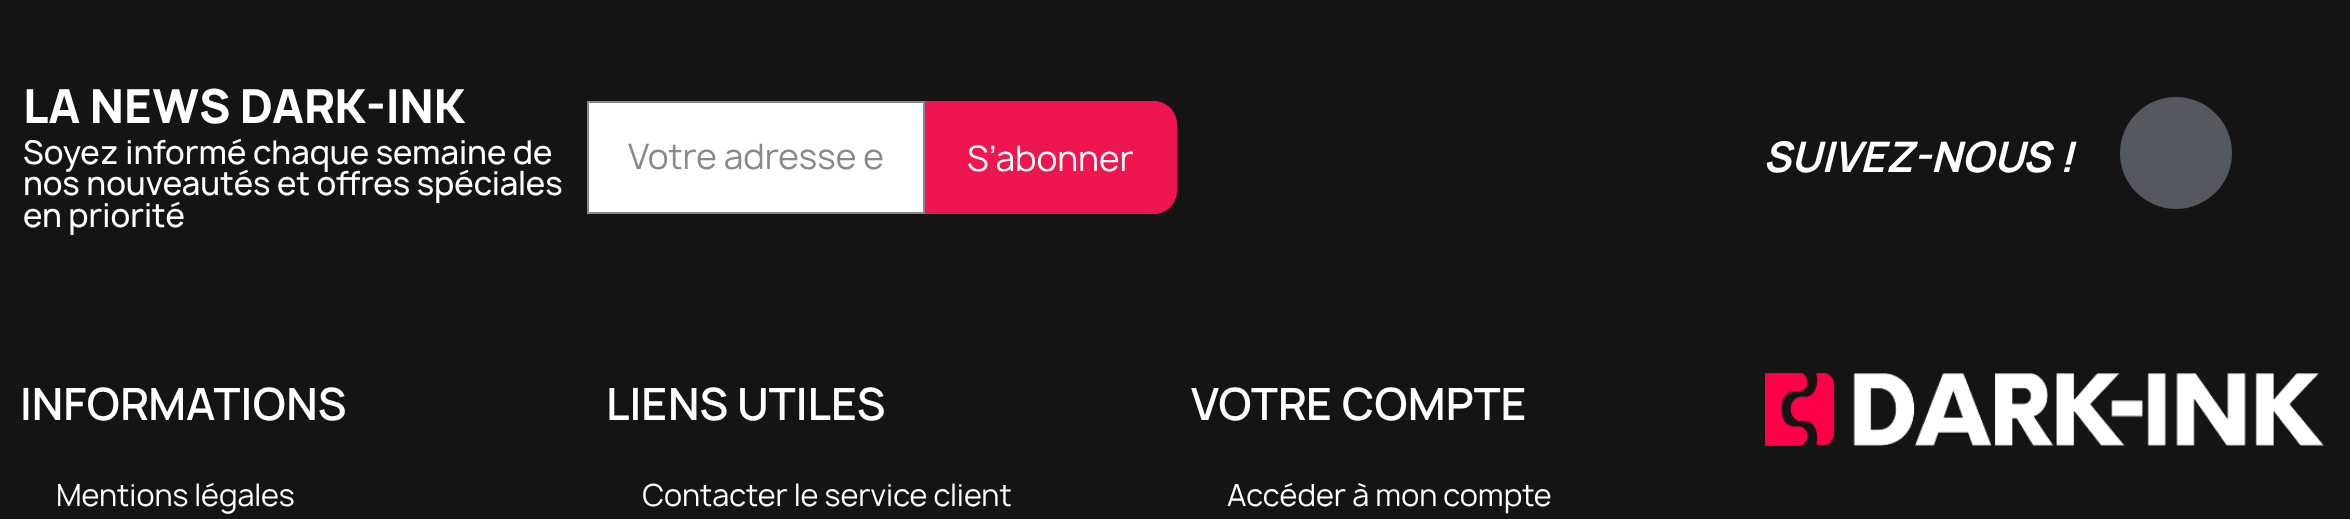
<?xml version="1.0" encoding="UTF-8"?>
<svg xmlns="http://www.w3.org/2000/svg" xmlns:xlink="http://www.w3.org/1999/xlink" width="2350" height="519">
  <rect width="100%" height="100%" fill="#141414" />
  <rect x="588" y="102" width="336" height="111" fill="#ffffff" stroke="#818a91" stroke-width="2" />
  <path d="M 925 101 h 229 c 12.5 0 23 10.5 23 23 v 67 c 0 12.5 -10.5 23 -23 23 h -229 z" fill="#ef154e" />
  <circle cx="2176" cy="153" r="56" fill="#54595f" />
  <image x="1765" y="373" width="560" height="73" xlink:href="image1.png" />
  <text x="23" y="123" style="font-family: Manrope; font-size: 45px; font-weight: 800; fill: #ffffff">LA NEWS DARK-INK</text>
  <text x="23" y="164" style="font-family: Manrope; font-size: 31.5px; font-weight: 500; fill: #ffffff">Soyez informé chaque semaine de</text>
  <text x="23" y="195" style="font-family: Manrope; font-size: 31.5px; font-weight: 500; fill: #ffffff">nos nouveautés et offres spéciales</text>
  <text x="23" y="227" style="font-family: Manrope; font-size: 31.5px; font-weight: 500; fill: #ffffff">en priorité</text>
  <text x="628" y="169" style="font-family: Manrope; font-size: 33.75px; fill: #87898a">Votre adresse e</text>
  <text x="967" y="171" style="font-family: Manrope; font-size: 33.75px; fill: #ffffff">S’abonner</text>
  <text x="1763" y="172" style="font-family: Manrope; font-size: 40.5px; font-weight: bold; font-style: italic; fill: #ffffff">SUIVEZ-NOUS !</text>
  <text x="20" y="420" style="font-family: Manrope; font-size: 42.75px; font-weight: 600; fill: #ffffff">INFORMATIONS</text>
  <text x="56" y="506" style="font-family: Manrope; font-size: 29.25px; fill: #ffffff">Mentions légales</text>
  <text x="606" y="420" style="font-family: Manrope; font-size: 42.75px; font-weight: 600; fill: #ffffff">LIENS UTILES</text>
  <text x="642" y="506" style="font-family: Manrope; font-size: 29.25px; fill: #ffffff">Contacter le service client</text>
  <text x="1191" y="420" style="font-family: Manrope; font-size: 42.75px; font-weight: 600; fill: #ffffff">VOTRE COMPTE</text>
  <text x="1227" y="506" style="font-family: Manrope; font-size: 29.25px; fill: #ffffff">Accéder à mon compte</text>
</svg>
